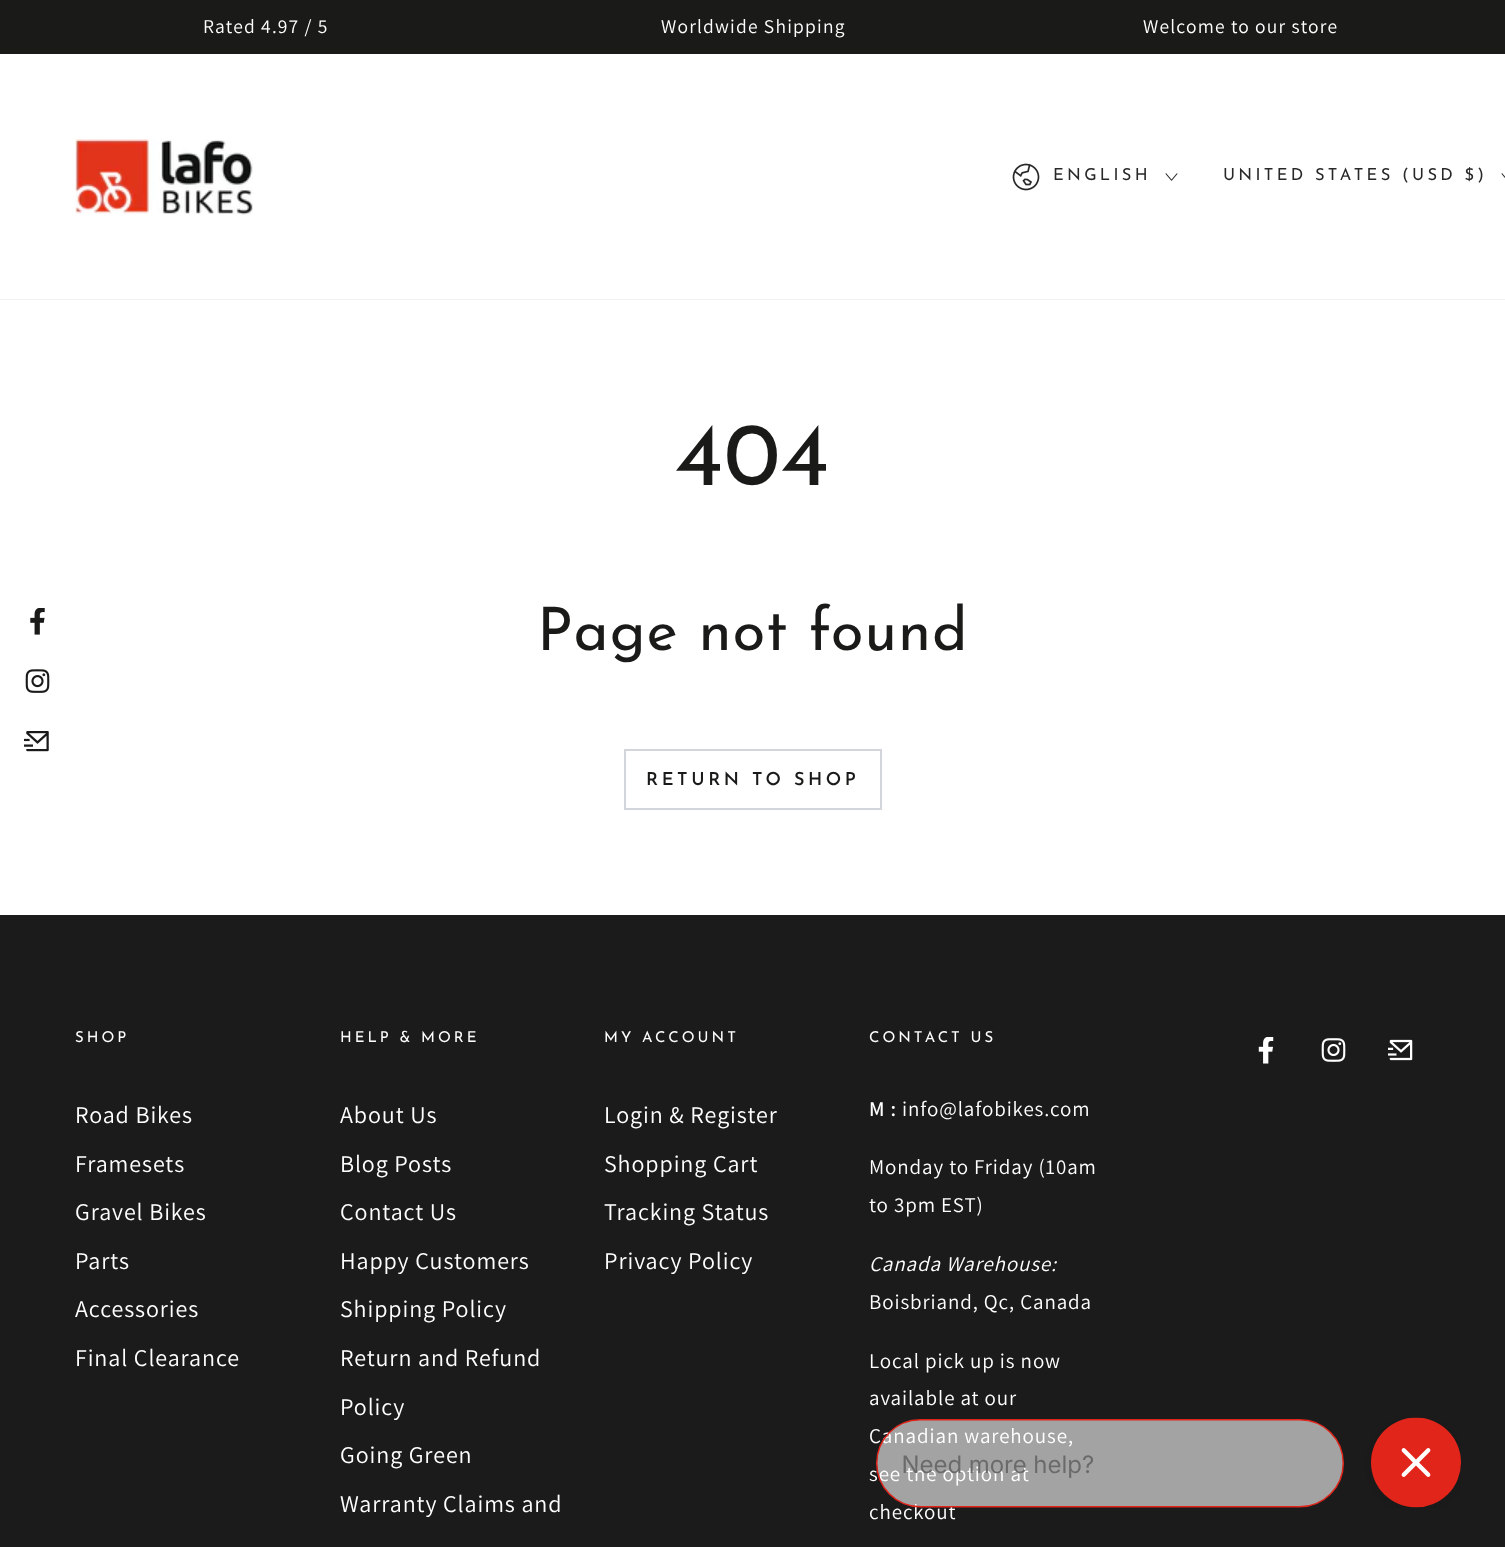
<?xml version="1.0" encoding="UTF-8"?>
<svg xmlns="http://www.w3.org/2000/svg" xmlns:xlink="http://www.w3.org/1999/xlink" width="1505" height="1547">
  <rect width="100%" height="100%" fill="#ffffff" />
  <image x="30" y="608" width="15" height="27" xlink:href="image1.png" />
  <image x="25" y="669" width="25" height="24" xlink:href="image2.png" />
  <image x="24" y="731" width="25" height="21" xlink:href="image3.png" />
  <rect width="1505" height="54" fill="#1a1b18" />
  <rect y="299" width="1505" height="1" fill="#f2f2f4" />
  <image x="75" y="139" width="178" height="76" xlink:href="image4.png" />
  <image x="1012" y="163" width="28" height="28" xlink:href="image5.png" />
  <image x="1165" y="173" width="13" height="8" xlink:href="image6.png" />
  <image x="1501" y="173" width="4" height="5" xlink:href="image7.png" />
  <rect x="625" y="750" width="256" height="59" fill="none" stroke="#d2d5d9" stroke-width="2" />
  <rect y="915" width="1505" height="632" fill="#1b1b1b" />
  <image x="1258" y="1037" width="16" height="27" xlink:href="image8.png" />
  <image x="1321" y="1038" width="25" height="24" xlink:href="image9.png" />
  <image x="1388" y="1039" width="25" height="22" xlink:href="image10.png" />
  <text x="203" y="33" style="font-family: Assistant; font-size: 19.5px; letter-spacing: 1.2px; fill: #ffffff">Rated 4.97 / 5</text>
  <text x="661" y="33" style="font-family: Assistant; font-size: 19.5px; letter-spacing: 1.2px; fill: #ffffff">Worldwide Shipping</text>
  <text x="1143" y="33" style="font-family: Assistant; font-size: 19.5px; letter-spacing: 1.2px; fill: #ffffff">Welcome to our store</text>
  <text x="1053" y="180" style="font-family: Josefin Sans; font-size: 16.5px; font-weight: 100; letter-spacing: 3.3px; fill: #282828">ENGLISH</text>
  <text x="1223" y="180" style="font-family: Josefin Sans; font-size: 16.5px; font-weight: 100; letter-spacing: 3.3px; fill: #282828">UNITED STATES (USD $)</text>
  <text x="675" y="485" style="font-family: Josefin Sans; font-size: 90px; font-weight: 100; letter-spacing: 0.9px; fill: #1a1b18">404</text>
  <text x="537" y="650" style="font-family: Josefin Sans; font-size: 60px; font-weight: 100; letter-spacing: 0.9px; fill: #1a1b18">Page not found</text>
  <text x="646" y="785" style="font-family: Josefin Sans; font-size: 18px; font-weight: 600; letter-spacing: 3.6px; fill: #1a1b18">RETURN TO SHOP</text>
  <text x="75" y="1042" style="font-family: Josefin Sans; font-size: 15px; font-weight: 100; letter-spacing: 3px; fill: #ffffff">SHOP</text>
  <text x="75" y="1123" style="font-family: Assistant; font-size: 24px; letter-spacing: 0.9px; fill: #ffffff">Road Bikes</text>
  <text x="75" y="1172" style="font-family: Assistant; font-size: 24px; letter-spacing: 0.9px; fill: #ffffff">Framesets</text>
  <text x="75" y="1220" style="font-family: Assistant; font-size: 24px; letter-spacing: 0.9px; fill: #ffffff">Gravel Bikes</text>
  <text x="75" y="1269" style="font-family: Assistant; font-size: 24px; letter-spacing: 0.9px; fill: #ffffff">Parts</text>
  <text x="75" y="1317" style="font-family: Assistant; font-size: 24px; letter-spacing: 0.9px; fill: #ffffff">Accessories</text>
  <text x="75" y="1366" style="font-family: Assistant; font-size: 24px; letter-spacing: 0.9px; fill: #ffffff">Final Clearance</text>
  <text x="340" y="1042" style="font-family: Josefin Sans; font-size: 15px; font-weight: 100; letter-spacing: 3px; fill: #ffffff">HELP &amp; MORE</text>
  <text x="340" y="1123" style="font-family: Assistant; font-size: 24px; letter-spacing: 0.9px; fill: #ffffff">About Us</text>
  <text x="340" y="1172" style="font-family: Assistant; font-size: 24px; letter-spacing: 0.9px; fill: #ffffff">Blog Posts</text>
  <text x="340" y="1220" style="font-family: Assistant; font-size: 24px; letter-spacing: 0.9px; fill: #ffffff">Contact Us</text>
  <text x="340" y="1269" style="font-family: Assistant; font-size: 24px; letter-spacing: 0.9px; fill: #ffffff">Happy Customers</text>
  <text x="340" y="1317" style="font-family: Assistant; font-size: 24px; letter-spacing: 0.9px; fill: #ffffff">Shipping Policy</text>
  <text x="340" y="1366" style="font-family: Assistant; font-size: 24px; letter-spacing: 0.9px; fill: #ffffff">Return and Refund</text>
  <text x="340" y="1415" style="font-family: Assistant; font-size: 24px; letter-spacing: 0.9px; fill: #ffffff">Policy</text>
  <text x="340" y="1463" style="font-family: Assistant; font-size: 24px; letter-spacing: 0.9px; fill: #ffffff">Going Green</text>
  <text x="340" y="1512" style="font-family: Assistant; font-size: 24px; letter-spacing: 0.9px; fill: #ffffff">Warranty Claims and</text>
  <text x="604" y="1042" style="font-family: Josefin Sans; font-size: 15px; font-weight: 100; letter-spacing: 3px; fill: #ffffff">MY ACCOUNT</text>
  <text x="604" y="1123" style="font-family: Assistant; font-size: 24px; letter-spacing: 0.9px; fill: #ffffff">Login &amp; Register</text>
  <text x="604" y="1172" style="font-family: Assistant; font-size: 24px; letter-spacing: 0.9px; fill: #ffffff">Shopping Cart</text>
  <text x="604" y="1220" style="font-family: Assistant; font-size: 24px; letter-spacing: 0.9px; fill: #ffffff">Tracking Status</text>
  <text x="604" y="1269" style="font-family: Assistant; font-size: 24px; letter-spacing: 0.9px; fill: #ffffff">Privacy Policy</text>
  <text x="869" y="1042" style="font-family: Josefin Sans; font-size: 15px; font-weight: 100; letter-spacing: 3px; fill: #ffffff">CONTACT US</text>
  <text x="869" y="1116" style="font-family: Assistant; font-size: 21px; font-weight: 600; letter-spacing: 0.9px; fill: #ffffff">M :</text>
  <text x="902" y="1116" style="font-family: Assistant; font-size: 21px; letter-spacing: 0.9px; fill: #ffffff">info@lafobikes.com</text>
  <text x="869" y="1174" style="font-family: Assistant; font-size: 21px; letter-spacing: 0.9px; fill: #ffffff">Monday to Friday (10am</text>
  <text x="869" y="1212" style="font-family: Assistant; font-size: 21px; letter-spacing: 0.9px; fill: #ffffff">to 3pm EST)</text>
  <text x="869" y="1271" style="font-family: Assistant; font-size: 21px; font-style: italic; letter-spacing: 0.9px; fill: #ffffff">Canada Warehouse:</text>
  <text x="869" y="1309" style="font-family: Assistant; font-size: 21px; letter-spacing: 0.9px; fill: #ffffff">Boisbriand, Qc, Canada</text>
  <text x="869" y="1368" style="font-family: Assistant; font-size: 21px; letter-spacing: 0.9px; fill: #ffffff">Local pick up is now</text>
  <text x="869" y="1405" style="font-family: Assistant; font-size: 21px; letter-spacing: 0.9px; fill: #ffffff">available at our</text>
  <text x="869" y="1443" style="font-family: Assistant; font-size: 21px; letter-spacing: 0.9px; fill: #ffffff">Canadian warehouse,</text>
  <text x="869" y="1481" style="font-family: Assistant; font-size: 21px; letter-spacing: 0.9px; fill: #ffffff">see the option at</text>
  <text x="869" y="1519" style="font-family: Assistant; font-size: 21px; letter-spacing: 0.9px; fill: #ffffff">checkout</text>
  <image x="876" y="1417" width="585" height="91" xlink:href="image11.png" />
</svg>
